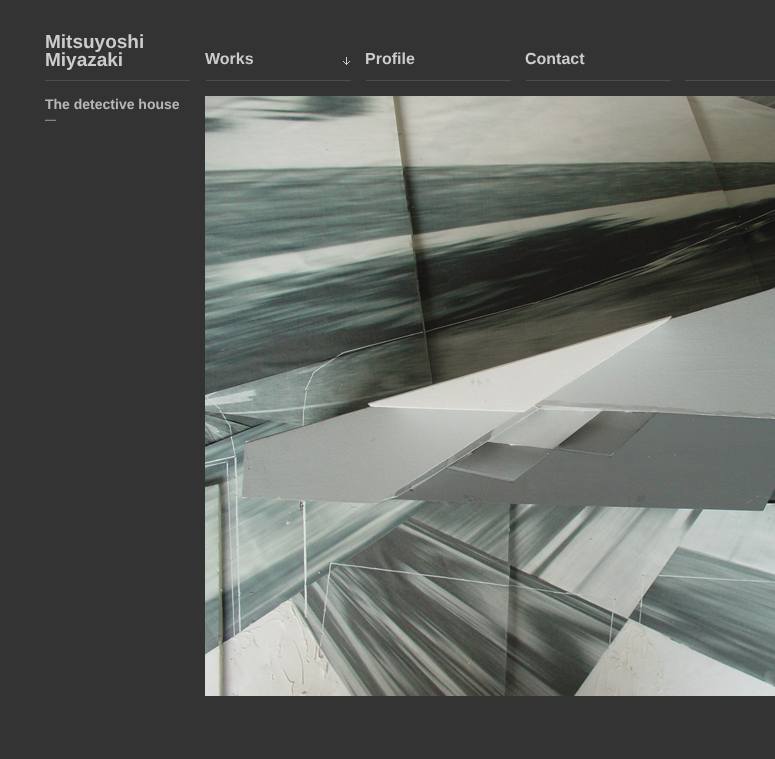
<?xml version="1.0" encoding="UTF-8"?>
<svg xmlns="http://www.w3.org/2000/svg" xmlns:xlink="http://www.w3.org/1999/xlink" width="775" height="759">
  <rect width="100%" height="100%" fill="#333333" />
  <image x="45" y="80" width="730" height="1" xlink:href="image1.png" />
  <image x="205" y="80" width="160" height="1" xlink:href="image2.png" />
  <image x="343" y="57" width="7" height="8" xlink:href="image3.png" />
  <image x="365" y="80" width="160" height="1" xlink:href="image2.png" />
  <image x="525" y="80" width="160" height="1" xlink:href="image2.png" />
  <image x="205" y="96" width="570" height="600" xlink:href="image4.png" />
  <text x="45" y="48" style="font-family: Liberation Sans; font-size: 19px; font-weight: bold; fill: #cccccc">Mitsuyoshi</text>
  <text x="45" y="66" style="font-family: Liberation Sans; font-size: 19px; font-weight: bold; fill: #cccccc">Miyazaki</text>
  <text x="205" y="64" style="font-family: Liberation Sans; font-size: 16px; font-weight: bold; fill: #cccccc">Works</text>
  <text x="365" y="64" style="font-family: Liberation Sans; font-size: 16px; font-weight: bold; fill: #cccccc">Profile</text>
  <text x="525" y="64" style="font-family: Liberation Sans; font-size: 16px; font-weight: bold; fill: #cccccc">Contact</text>
  <text x="45" y="109" style="font-family: Liberation Sans; font-size: 14px; font-weight: bold; fill: #b8b8b8">The detective house</text>
  <text x="45" y="123" style="font-family: Liberation Sans; font-size: 11px; fill: #b8b8b8">—</text>
</svg>
